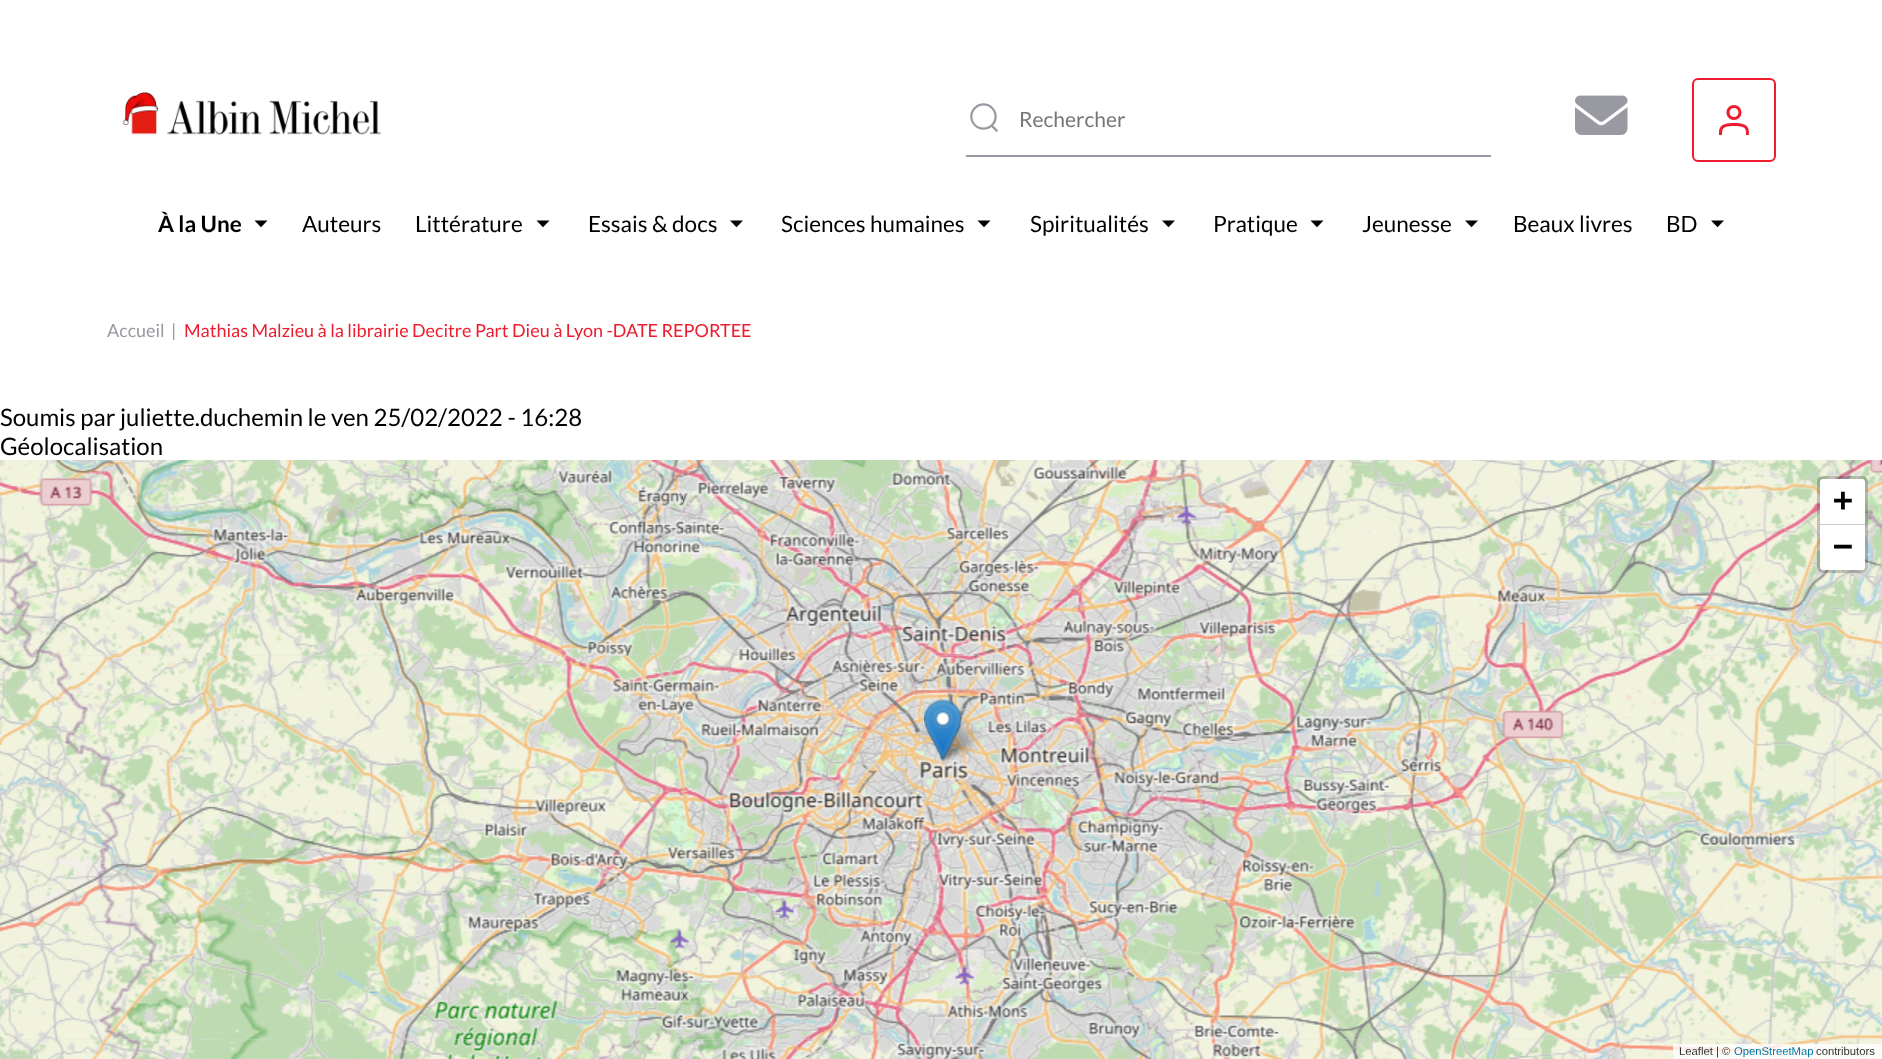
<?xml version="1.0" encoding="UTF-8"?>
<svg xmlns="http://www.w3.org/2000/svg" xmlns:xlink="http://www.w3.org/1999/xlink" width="1882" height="1059">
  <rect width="100%" height="100%" fill="#ffffff" />
  <image x="122" y="92" width="260" height="43" xlink:href="image1.png" />
  <rect x="966" y="155" width="525" height="2" fill="#9999a1" />
  <image x="970" y="103" width="28" height="29" xlink:href="image2.png" />
  <image x="1575" y="95" width="53" height="40" xlink:href="image3.png" />
  <rect x="1693" y="79" width="82" height="82" rx="5" fill="none" stroke="#ed1c2e" stroke-width="2" />
  <image x="1719" y="105" width="30" height="30" xlink:href="image4.png" />
  <image x="254" y="220" width="14" height="8" xlink:href="image5.png" />
  <image x="536" y="220" width="14" height="8" xlink:href="image5.png" />
  <image x="730" y="220" width="13" height="8" xlink:href="image6.png" />
  <image x="977" y="220" width="14" height="8" xlink:href="image5.png" />
  <image x="1162" y="220" width="13" height="8" xlink:href="image6.png" />
  <image x="1310" y="220" width="14" height="8" xlink:href="image5.png" />
  <image x="1465" y="220" width="13" height="8" xlink:href="image6.png" />
  <image x="1711" y="220" width="13" height="8" xlink:href="image6.png" />
  <rect y="655" width="1882" height="385" fill="#dddddd" />
  <image x="682" y="655" width="385" height="385" xlink:href="image15.png" />
  <image x="298" y="655" width="385" height="385" xlink:href="image14.png" />
  <image x="0" y="655" width="299" height="385" xlink:href="image13.png" />
  <image x="0" y="460" width="299" height="196" xlink:href="image7.png" />
  <image x="299" y="460" width="384" height="196" xlink:href="image8.png" />
  <image x="1066" y="655" width="385" height="385" xlink:href="image16.png" />
  <image x="683" y="460" width="384" height="196" xlink:href="image9.png" />
  <image x="1067" y="460" width="384" height="196" xlink:href="image10.png" />
  <image x="1067" y="1039" width="384" height="20" xlink:href="image22.png" />
  <image x="1450" y="655" width="385" height="385" xlink:href="image17.png" />
  <image x="1451" y="460" width="384" height="196" xlink:href="image11.png" />
  <image x="1835" y="655" width="47" height="385" xlink:href="image18.png" />
  <image x="1835" y="460" width="47" height="196" xlink:href="image12.png" />
  <image x="0" y="1039" width="299" height="20" xlink:href="image19.png" />
  <image x="299" y="1039" width="384" height="20" xlink:href="image20.png" />
  <image x="683" y="1039" width="384" height="20" xlink:href="image21.png" />
  <image x="1451" y="1039" width="384" height="20" xlink:href="image23.png" />
  <image x="1835" y="1039" width="47" height="20" xlink:href="image24.png" />
  <image x="937" y="718" width="46" height="43" xlink:href="image26.png" />
  <image x="924" y="698" width="38" height="63" xlink:href="image25.png" />
  <rect x="1818.5" y="477.5" width="48" height="94" rx="4.5" fill="none" stroke="#000000" stroke-opacity="0.2" stroke-width="3" />
  <path d="M 1823 479 h 39 c 1.5 0 3 1.5 3 3 v 43 h -45 v -43 c 0 -1.5 1.5 -3 3 -3 z" fill="#ffffff" />
  <rect x="1820" y="524" width="45" height="1" fill="#cccccc" />
  <path d="M 1820 525 h 45 v 42 c 0 1.5 -1.5 3 -3 3 h -39 c -1.5 0 -3 -1.5 -3 -3 z" fill="#ffffff" />
  <rect x="1673" y="1044" width="209" height="15" fill="#ffffff" fill-opacity="0.8" />
  <text x="1019" y="127" style="font-family: Lato; font-size: 21px; fill: #757575">Rechercher</text>
  <text x="158" y="232" style="font-family: Lato; font-size: 22.5px; font-weight: bold; fill: #000000">À la Une</text>
  <text x="302" y="232" style="font-family: Lato; font-size: 22.5px; fill: #000000">Auteurs</text>
  <text x="415" y="232" style="font-family: Lato; font-size: 22.5px; fill: #000000">Littérature</text>
  <text x="588" y="232" style="font-family: Lato; font-size: 22.5px; fill: #000000">Essais &amp; docs</text>
  <text x="781" y="232" style="font-family: Lato; font-size: 22.5px; fill: #000000">Sciences humaines</text>
  <text x="1030" y="232" style="font-family: Lato; font-size: 22.5px; fill: #000000">Spiritualités</text>
  <text x="1213" y="232" style="font-family: Lato; font-size: 22.5px; fill: #000000">Pratique</text>
  <text x="1362" y="232" style="font-family: Lato; font-size: 22.5px; fill: #000000">Jeunesse</text>
  <text x="1513" y="232" style="font-family: Lato; font-size: 22.5px; fill: #000000">Beaux livres</text>
  <text x="1666" y="232" style="font-family: Lato; font-size: 22.5px; fill: #000000">BD</text>
  <text x="107" y="337" style="font-family: Lato; font-size: 18px; fill: #9999a1">Accueil</text>
  <text x="171" y="337" style="font-family: Lato; font-size: 18px; fill: #9999a1">|</text>
  <text x="184" y="337" style="font-family: Lato; font-size: 18px; fill: #ed1c2e">Mathias Malzieu à la librairie Decitre Part Dieu à Lyon -DATE REPORTEE</text>
  <text x="0" y="426" style="font-family: Lato; font-size: 24px; fill: #000000">Soumis par juliette.duchemin le ven 25/02/2022 - 16:28</text>
  <text x="0" y="455" style="font-family: Lato; font-size: 24px; fill: #000000">Géolocalisation</text>
  <text x="1833" y="511" style="font-family: DejaVu Sans Mono; font-size: 33px; font-weight: bold; fill: #000000">+</text>
  <text x="1833" y="557" style="font-family: DejaVu Sans Mono; font-size: 33px; font-weight: bold; fill: #000000">−</text>
  <text x="1679" y="1055" style="font-family: Liberation Sans; font-size: 11.25px; fill: #333333">Leaflet | ©</text>
  <text x="1734" y="1055" style="font-family: Liberation Sans; font-size: 11.25px; fill: #0078a8">OpenStreetMap</text>
  <text x="1816" y="1055" style="font-family: Liberation Sans; font-size: 11.25px; fill: #333333">contributors</text>
</svg>
